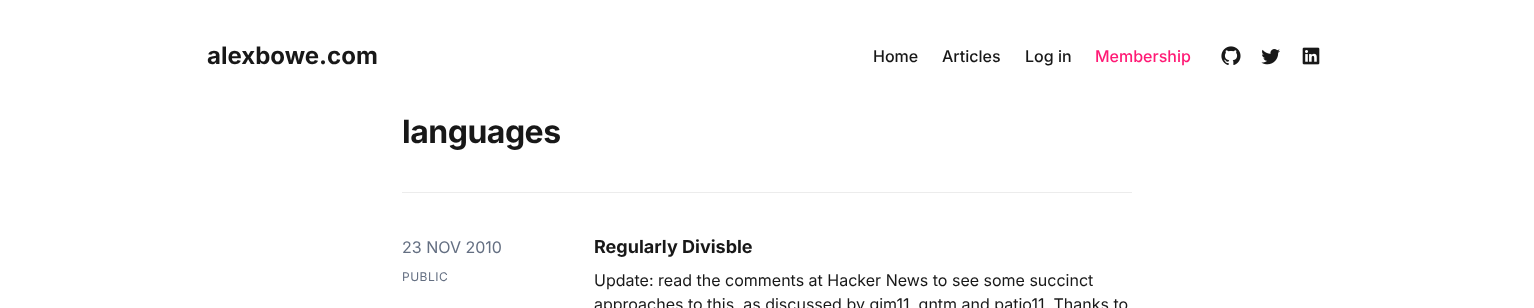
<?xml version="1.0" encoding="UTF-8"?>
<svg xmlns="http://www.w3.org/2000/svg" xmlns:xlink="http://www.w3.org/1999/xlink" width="1534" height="308">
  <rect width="100%" height="100%" fill="#ffffff" />
  <image x="1221" y="46" width="20" height="19" xlink:href="image1.png" />
  <image x="1261" y="49" width="19" height="16" xlink:href="image2.png" />
  <image x="1302" y="47" width="18" height="18" xlink:href="image3.png" />
  <rect x="402" y="192" width="730" height="1" fill="#ececec" />
  <text x="207" y="64" style="font-family: Inter; font-size: 24px; font-weight: bold; fill: #181818">alexbowe.com</text>
  <text x="873" y="62" style="font-family: Inter; font-size: 16px; font-weight: 500; fill: #181818">Home</text>
  <text x="942" y="62" style="font-family: Inter; font-size: 16px; font-weight: 500; fill: #181818">Articles</text>
  <text x="1025" y="62" style="font-family: Inter; font-size: 16px; font-weight: 500; fill: #181818">Log in</text>
  <text x="1095" y="62" style="font-family: Inter; font-size: 16px; font-weight: 500; fill: #ff1a75">Membership</text>
  <text x="402" y="143" style="font-family: Inter; font-size: 32px; font-weight: bold; letter-spacing: -0.5px; fill: #181818">languages</text>
  <text x="402" y="253" style="font-family: Inter; font-size: 16px; fill: #646f82">23 NOV 2010</text>
  <text x="402" y="281" style="font-family: Inter; font-size: 12px; letter-spacing: 0.5px; fill: #646f82">PUBLIC</text>
  <text x="594" y="253" style="font-family: Inter; font-size: 18px; font-weight: bold; fill: #181818">Regularly Divisble</text>
  <text x="594" y="286" style="font-family: Inter; font-size: 16px; fill: #181818">Update: read the comments at Hacker News to see some succinct</text>
  <text x="594" y="310" style="font-family: Inter; font-size: 16px; fill: #181818">approaches to this, as discussed by gjm11, qntm and patio11. Thanks to</text>
</svg>
